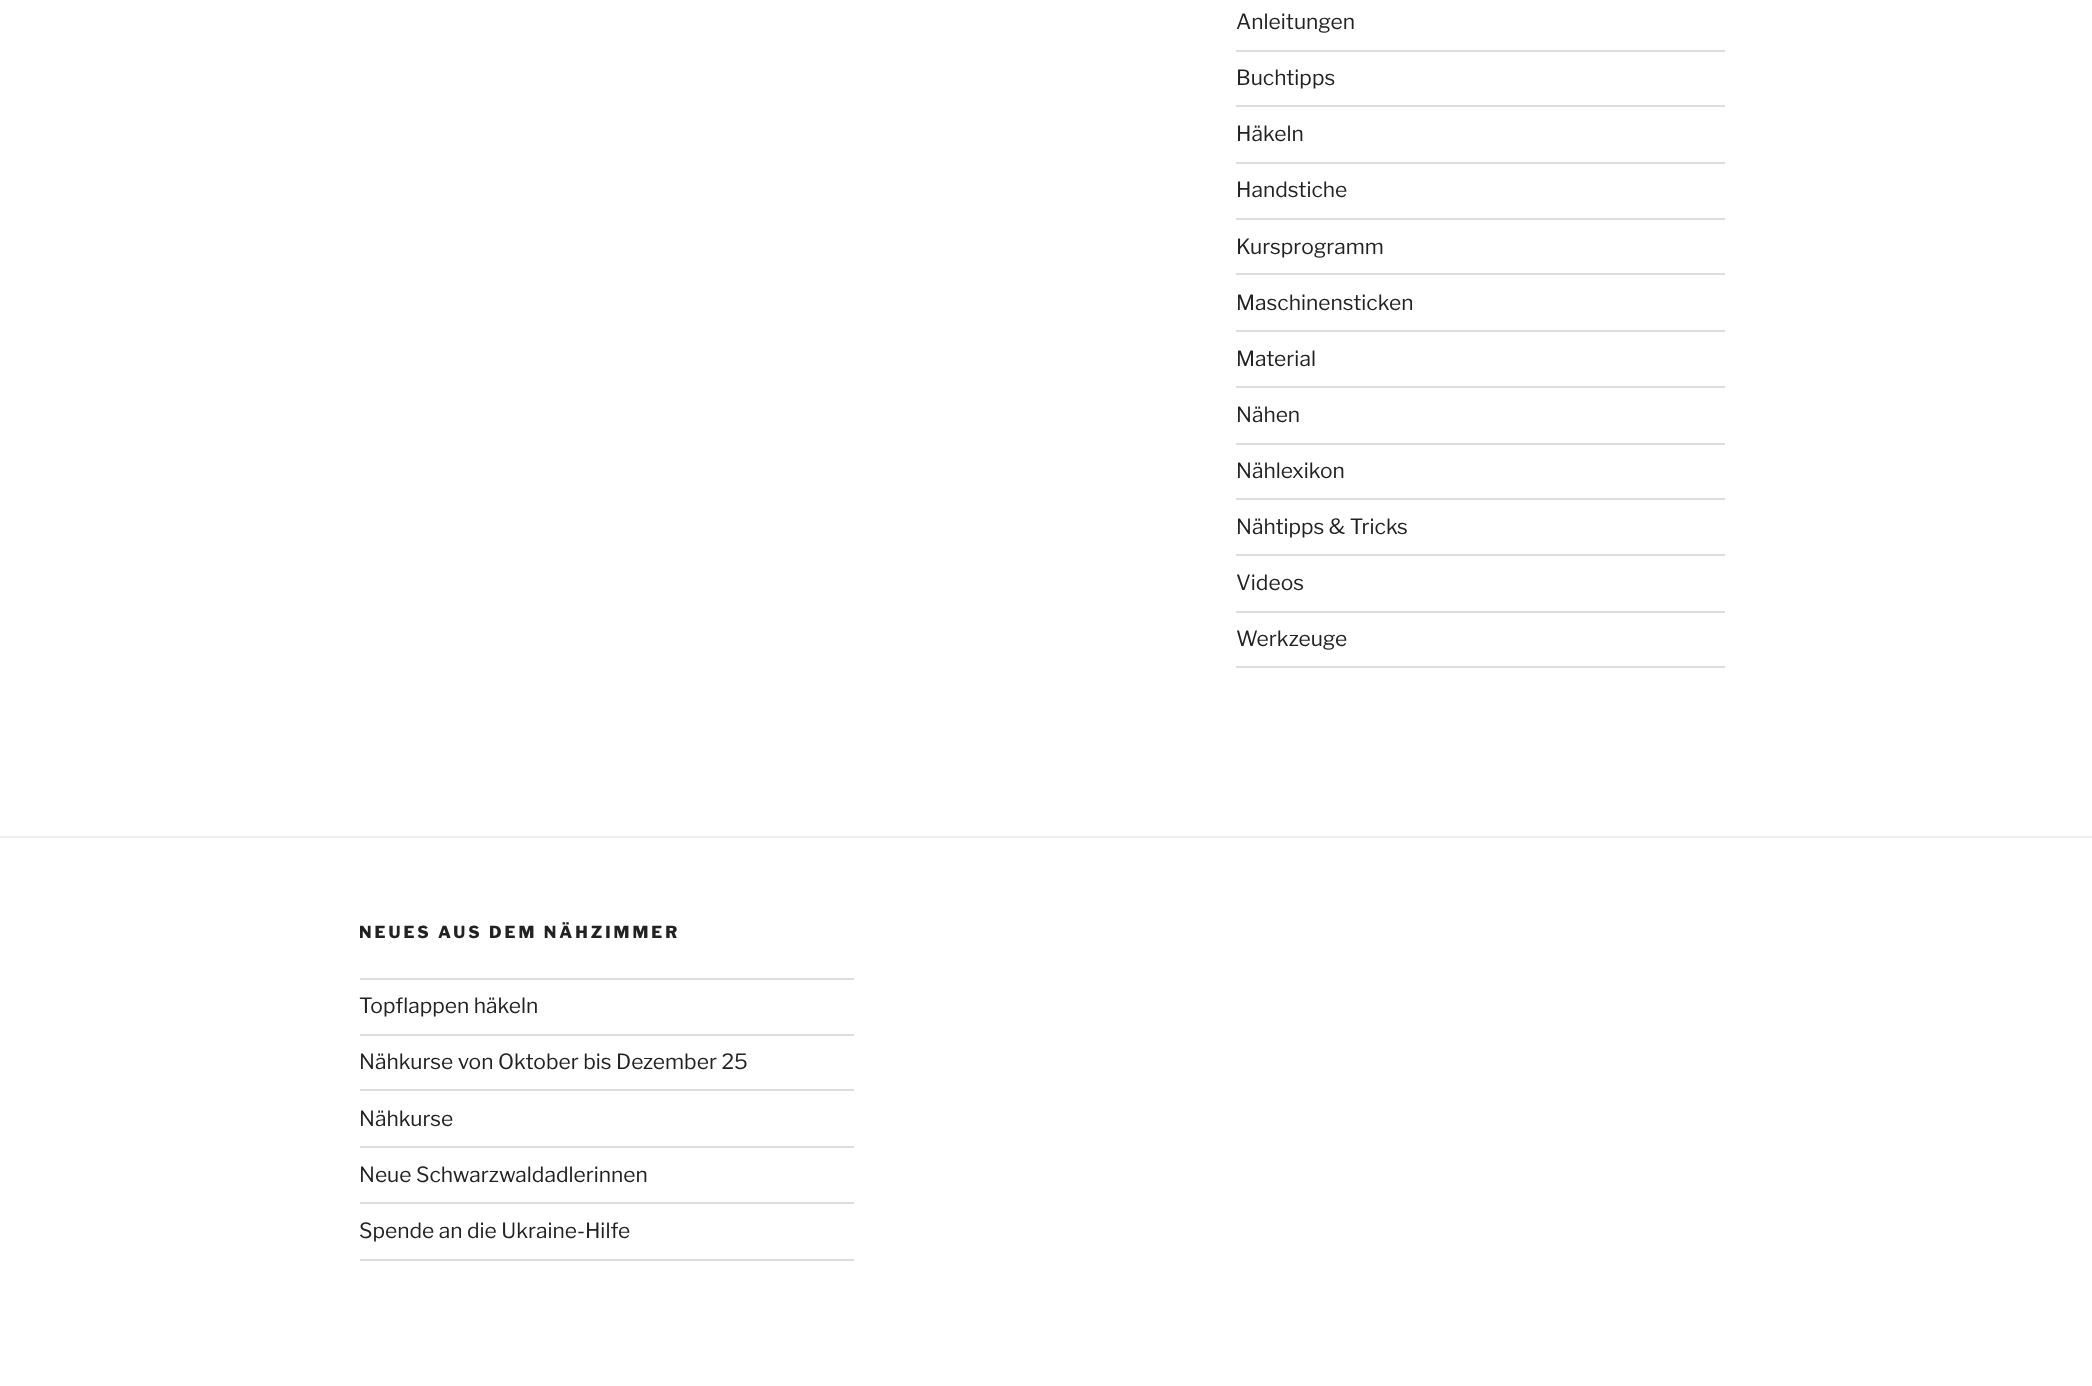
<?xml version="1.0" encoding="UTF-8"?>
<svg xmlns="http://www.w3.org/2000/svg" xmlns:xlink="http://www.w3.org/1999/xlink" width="2092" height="1386">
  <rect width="100%" height="100%" fill="#ffffff" />
  <rect x="1236" y="50" width="489" height="2" fill="#dddddd" />
  <rect x="1236" y="105" width="489" height="2" fill="#dddddd" />
  <rect x="1236" y="162" width="489" height="2" fill="#dddddd" />
  <rect x="1236" y="218" width="489" height="2" fill="#dddddd" />
  <rect x="1236" y="273" width="489" height="2" fill="#dddddd" />
  <rect x="1236" y="330" width="489" height="2" fill="#dddddd" />
  <rect x="1236" y="386" width="489" height="2" fill="#dddddd" />
  <rect x="1236" y="443" width="489" height="2" fill="#dddddd" />
  <rect x="1236" y="498" width="489" height="2" fill="#dddddd" />
  <rect x="1236" y="554" width="489" height="2" fill="#dddddd" />
  <rect x="1236" y="611" width="489" height="2" fill="#dddddd" />
  <rect x="1236" y="666" width="489" height="2" fill="#dddddd" />
  <rect y="836" width="2092" height="2" fill="#eeeeee" />
  <rect x="360" y="978" width="494" height="2" fill="#dddddd" />
  <rect x="360" y="1034" width="494" height="2" fill="#dddddd" />
  <rect x="360" y="1089" width="494" height="2" fill="#dddddd" />
  <rect x="360" y="1146" width="494" height="2" fill="#dddddd" />
  <rect x="360" y="1202" width="494" height="2" fill="#dddddd" />
  <rect x="360" y="1259" width="494" height="2" fill="#dddddd" />
  <text x="1236" y="29" style="font-family: Libre Franklin; font-size: 21px; font-weight: 100; fill: #222222">Anleitungen</text>
  <text x="1236" y="85" style="font-family: Libre Franklin; font-size: 21px; font-weight: 100; fill: #222222">Buchtipps</text>
  <text x="1236" y="141" style="font-family: Libre Franklin; font-size: 21px; font-weight: 100; fill: #222222">Häkeln</text>
  <text x="1236" y="197" style="font-family: Libre Franklin; font-size: 21px; font-weight: 100; fill: #222222">Handstiche</text>
  <text x="1236" y="254" style="font-family: Libre Franklin; font-size: 21px; font-weight: 100; fill: #222222">Kursprogramm</text>
  <text x="1236" y="310" style="font-family: Libre Franklin; font-size: 21px; font-weight: 100; fill: #222222">Maschinensticken</text>
  <text x="1236" y="366" style="font-family: Libre Franklin; font-size: 21px; font-weight: 100; fill: #222222">Material</text>
  <text x="1236" y="422" style="font-family: Libre Franklin; font-size: 21px; font-weight: 100; fill: #222222">Nähen</text>
  <text x="1236" y="478" style="font-family: Libre Franklin; font-size: 21px; font-weight: 100; fill: #222222">Nählexikon</text>
  <text x="1236" y="534" style="font-family: Libre Franklin; font-size: 21px; font-weight: 100; fill: #222222">Nähtipps &amp; Tricks</text>
  <text x="1236" y="590" style="font-family: Libre Franklin; font-size: 21px; font-weight: 100; fill: #222222">Videos</text>
  <text x="1236" y="646" style="font-family: Libre Franklin; font-size: 21px; font-weight: 100; fill: #222222">Werkzeuge</text>
  <text x="359" y="938" style="font-family: 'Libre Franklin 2'; font-size: 16.5px; font-weight: 100; letter-spacing: 3px; fill: #222222">NEUES AUS DEM NÄHZIMMER</text>
  <text x="359" y="1013" style="font-family: Libre Franklin; font-size: 21px; font-weight: 100; fill: #222222">Topflappen häkeln</text>
  <text x="359" y="1069" style="font-family: Libre Franklin; font-size: 21px; font-weight: 100; fill: #222222">Nähkurse von Oktober bis Dezember 25</text>
  <text x="359" y="1126" style="font-family: Libre Franklin; font-size: 21px; font-weight: 100; fill: #222222">Nähkurse</text>
  <text x="359" y="1182" style="font-family: Libre Franklin; font-size: 21px; font-weight: 100; fill: #222222">Neue Schwarzwaldadlerinnen</text>
  <text x="359" y="1238" style="font-family: Libre Franklin; font-size: 21px; font-weight: 100; fill: #222222">Spende an die Ukraine-Hilfe</text>
</svg>
